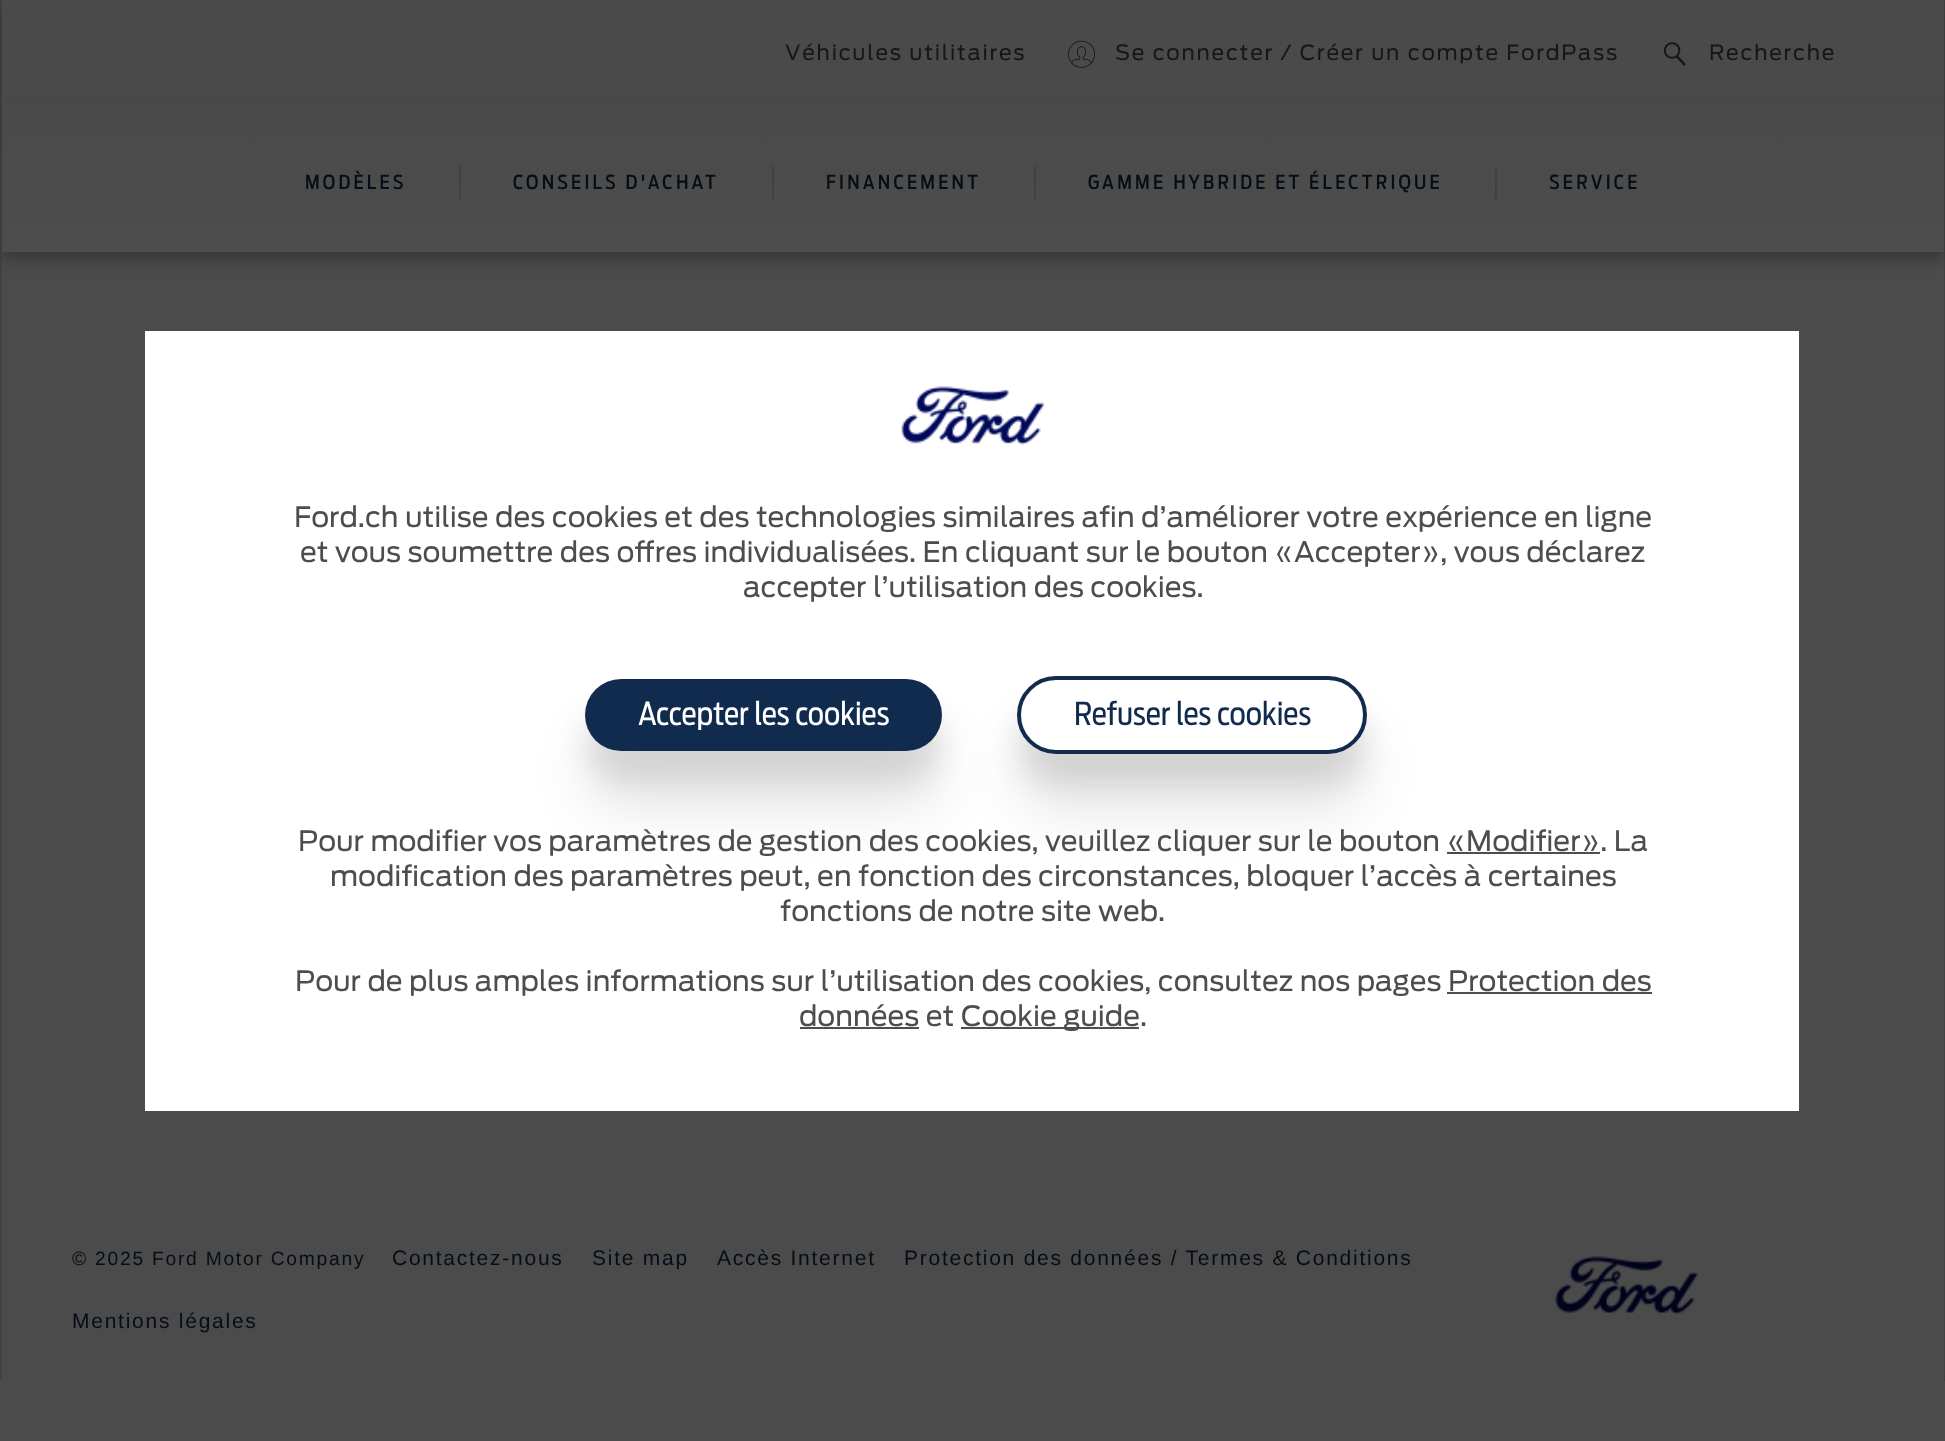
<?xml version="1.0" encoding="UTF-8"?>
<svg xmlns="http://www.w3.org/2000/svg" xmlns:xlink="http://www.w3.org/1999/xlink" width="1945" height="1441">
  <defs>
    <linearGradient id="g1" gradientUnits="userSpaceOnUse" x1="973" y1="105" x2="973" y2="252"><stop offset="0" stop-color="#4a4a4a" /><stop offset="1" stop-color="#4d4d4d" /></linearGradient>
  </defs>
  <rect width="100%" height="100%" fill="#4b4b4b" />
  <rect x="1944" width="1" height="1381" fill="#424242" />
  <rect width="2" height="1381" fill="#424242" />
  <rect x="2" y="7" width="1942" height="105" fill="#363636" filter="blur(7px)" />
  <rect x="2" width="1942" height="105" fill="#4a4a4a" />
  <image x="1067" y="40" width="29" height="28" xlink:href="image1.png" />
  <image x="1663" y="42" width="23" height="24" xlink:href="image2.png" />
  <rect x="2" y="112" width="1942" height="147" fill="#363636" filter="blur(7px)" />
  <rect x="2" y="105" width="1942" height="147" fill="url(#g1)" />
  <rect x="459" y="166" width="2" height="35" fill="#414141" />
  <rect x="772" y="166" width="2" height="35" fill="#414141" />
  <rect x="1034" y="166" width="2" height="35" fill="#414141" />
  <rect x="1495" y="166" width="2" height="35" fill="#414141" />
  <rect x="145" y="331" width="1654" height="780" fill="#ffffff" />
  <image x="901" y="386" width="144" height="59" xlink:href="image3.png" />
  <rect x="585" y="735" width="357" height="72" rx="36" fill="#000000" fill-opacity="0.1" filter="blur(28px)" />
  <rect x="585" y="707" width="357" height="72" rx="36" fill="#000000" fill-opacity="0.1" filter="blur(14px)" />
  <rect x="585" y="679" width="357" height="72" rx="36" fill="#102b4e" />
  <rect x="1447" y="852" width="153" height="2" fill="#4d4d4d" />
  <rect x="1017" y="732" width="350" height="78" rx="39" fill="#000000" fill-opacity="0.1" filter="blur(28px)" />
  <rect x="1017" y="704" width="350" height="78" rx="39" fill="#000000" fill-opacity="0.1" filter="blur(14px)" />
  <rect x="1019" y="678" width="346" height="74" rx="37" fill="#ffffff" stroke="#102b4e" stroke-width="4" />
  <rect x="1447" y="992" width="205" height="2" fill="#4d4d4d" />
  <rect x="800" y="1027" width="119" height="2" fill="#4d4d4d" />
  <rect x="961" y="1027" width="178" height="2" fill="#4d4d4d" />
  <image x="1555" y="1256" width="143" height="59" xlink:href="image4.png" />
  <text x="785" y="60" style="font-family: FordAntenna; font-size: 21px; letter-spacing: 1.75px; fill: #171717">Véhicules utilitaires</text>
  <text x="1115" y="60" style="font-family: FordAntenna; font-size: 21px; letter-spacing: 1.75px; fill: #171717">Se connecter / Créer un compte FordPass</text>
  <text x="1709" y="60" style="font-family: FordAntenna; font-size: 21px; letter-spacing: 1.75px; fill: #171717">Recherche</text>
  <text x="305" y="189" style="font-family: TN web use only; font-size: 19.25px; font-weight: 500; letter-spacing: 3.2px; fill: #050d17">MODÈLES</text>
  <text x="513" y="189" style="font-family: TN web use only; font-size: 19.25px; font-weight: 500; letter-spacing: 3.2px; fill: #050d17">CONSEILS D'ACHAT</text>
  <text x="826" y="189" style="font-family: TN web use only; font-size: 19.25px; font-weight: 500; letter-spacing: 3.2px; fill: #050d17">FINANCEMENT</text>
  <text x="1088" y="189" style="font-family: TN web use only; font-size: 19.25px; font-weight: 500; letter-spacing: 3.2px; fill: #050d17">GAMME HYBRIDE ET ÉLECTRIQUE</text>
  <text x="1549" y="189" style="font-family: TN web use only; font-size: 19.25px; font-weight: 500; letter-spacing: 3.2px; fill: #050d17">SERVICE</text>
  <text x="294" y="527" style="font-family: FordAntenna; font-size: 28px; fill: #4d4d4d">Ford.ch utilise des cookies et des technologies similaires afin d’améliorer votre expérience en ligne</text>
  <text x="300" y="562" style="font-family: FordAntenna; font-size: 28px; fill: #4d4d4d">et vous soumettre des offres individualisées. En cliquant sur le bouton «Accepter», vous déclarez</text>
  <text x="743" y="597" style="font-family: FordAntenna; font-size: 28px; fill: #4d4d4d">accepter l’utilisation des cookies.</text>
  <text x="638" y="725" style="font-family: TN web use only; font-size: 31.5px; fill: #ffffff">Accepter les cookies</text>
  <text x="1074" y="725" style="font-family: TN web use only; font-size: 31.5px; fill: #102b4e">Refuser les cookies</text>
  <text x="298" y="851" style="font-family: FordAntenna; font-size: 28px; fill: #4d4d4d">Pour modifier vos paramètres de gestion des cookies, veuillez cliquer sur le bouton «Modifier». La</text>
  <text x="330" y="886" style="font-family: FordAntenna; font-size: 28px; fill: #4d4d4d">modification des paramètres peut, en fonction des circonstances, bloquer l’accès à certaines</text>
  <text x="780" y="921" style="font-family: FordAntenna; font-size: 28px; fill: #4d4d4d">fonctions de notre site web.</text>
  <text x="295" y="991" style="font-family: FordAntenna; font-size: 28px; fill: #4d4d4d">Pour de plus amples informations sur l’utilisation des cookies, consultez nos pages Protection des</text>
  <text x="799" y="1026" style="font-family: FordAntenna; font-size: 28px; fill: #4d4d4d">données et</text>
  <text x="961" y="1026" style="font-family: FordAntenna; font-size: 28px; fill: #4d4d4d">Cookie guide.</text>
  <text x="72" y="1265" style="font-family: Liberation Sans; font-size: 19.25px; letter-spacing: 1.75px; fill: #050d17">© 2025 Ford Motor Company</text>
  <text x="392" y="1265" style="font-family: Liberation Sans; font-size: 21px; letter-spacing: 1.75px; fill: #050d17">Contactez-nous</text>
  <text x="592" y="1265" style="font-family: Liberation Sans; font-size: 21px; letter-spacing: 1.75px; fill: #050d17">Site map</text>
  <text x="717" y="1265" style="font-family: Liberation Sans; font-size: 21px; letter-spacing: 1.75px; fill: #050d17">Accès Internet</text>
  <text x="904" y="1265" style="font-family: Liberation Sans; font-size: 21px; letter-spacing: 1.75px; fill: #050d17">Protection des données / Termes &amp; Conditions</text>
  <text x="72" y="1328" style="font-family: Liberation Sans; font-size: 21px; letter-spacing: 1.75px; fill: #050d17">Mentions légales</text>
</svg>
